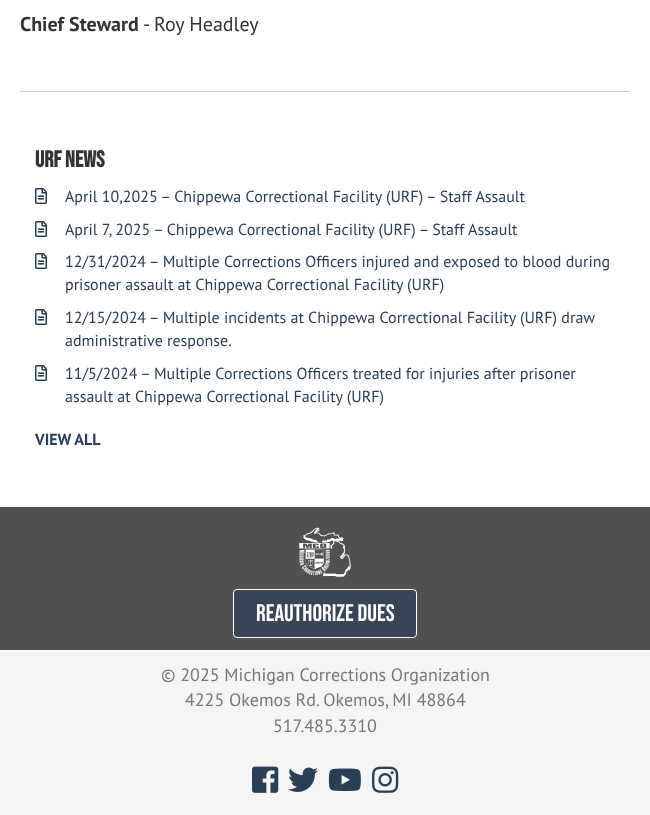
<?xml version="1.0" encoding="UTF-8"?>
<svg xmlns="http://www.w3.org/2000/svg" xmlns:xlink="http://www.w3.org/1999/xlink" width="650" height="815">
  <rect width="100%" height="100%" fill="#ffffff" />
  <rect x="20" y="91" width="610" height="1" fill="#cccccc" />
  <image x="35" y="188" width="12" height="16" xlink:href="image1.png" />
  <image x="35" y="221" width="12" height="16" xlink:href="image1.png" />
  <image x="35" y="253" width="12" height="16" xlink:href="image1.png" />
  <image x="35" y="309" width="12" height="16" xlink:href="image1.png" />
  <image x="35" y="365" width="12" height="16" xlink:href="image1.png" />
  <rect y="652" width="650" height="163" fill="#f5f5f5" />
  <rect y="507" width="650" height="143" fill="#515151" />
  <image x="299" y="527" width="52" height="50" xlink:href="image2.png" />
  <rect x="233.5" y="589.5" width="183" height="48" rx="3.5" fill="#384554" stroke="#ffffff" />
  <image x="252" y="766" width="27" height="27" xlink:href="image3.png" />
  <image x="288" y="767" width="30" height="25" xlink:href="image4.png" />
  <image x="328" y="768" width="33" height="23" xlink:href="image5.png" />
  <image x="372" y="766" width="27" height="27" xlink:href="image6.png" />
  <text x="20" y="31" style="font-family: PT Sans; font-size: 20px; font-weight: bold; fill: #333333">Chief Steward</text>
  <text x="143" y="31" style="font-family: PT Sans; font-size: 20px; fill: #333333">- Roy Headley</text>
  <text x="35" y="167" style="font-family: Bebas Neue; font-size: 23px; font-weight: bold; fill: #333333">URF News</text>
  <text x="65" y="202" style="font-family: PT Sans; font-size: 16px; fill: #2a3f56">April 10,2025 – Chippewa Correctional Facility (URF) – Staff Assault</text>
  <text x="65" y="235" style="font-family: PT Sans; font-size: 16px; fill: #2a3f56">April 7, 2025 – Chippewa Correctional Facility (URF) – Staff Assault</text>
  <text x="65" y="267" style="font-family: PT Sans; font-size: 16px; fill: #2a3f56">12/31/2024 – Multiple Corrections Officers injured and exposed to blood during</text>
  <text x="65" y="290" style="font-family: PT Sans; font-size: 16px; fill: #2a3f56">prisoner assault at Chippewa Correctional Facility (URF)</text>
  <text x="65" y="323" style="font-family: PT Sans; font-size: 16px; fill: #2a3f56">12/15/2024 – Multiple incidents at Chippewa Correctional Facility (URF) draw</text>
  <text x="65" y="346" style="font-family: PT Sans; font-size: 16px; fill: #2a3f56">administrative response.</text>
  <text x="65" y="379" style="font-family: PT Sans; font-size: 16px; fill: #2a3f56">11/5/2024 – Multiple Corrections Officers treated for injuries after prisoner</text>
  <text x="65" y="402" style="font-family: PT Sans; font-size: 16px; fill: #2a3f56">assault at Chippewa Correctional Facility (URF)</text>
  <text x="35" y="445" style="font-family: PT Sans; font-size: 16px; font-weight: bold; fill: #2a3f56">VIEW ALL</text>
  <text x="256" y="621" style="font-family: Bebas Neue; font-size: 24px; fill: #ffffff">REAUTHORIZE DUES</text>
  <text x="161" y="681" style="font-family: PT Sans; font-size: 18px; fill: #777777">© 2025 Michigan Corrections Organization</text>
  <text x="185" y="706" style="font-family: PT Sans; font-size: 18px; fill: #777777">4225 Okemos Rd. Okemos, MI 48864</text>
  <text x="273" y="732" style="font-family: PT Sans; font-size: 18px; fill: #777777">517.485.3310</text>
</svg>
